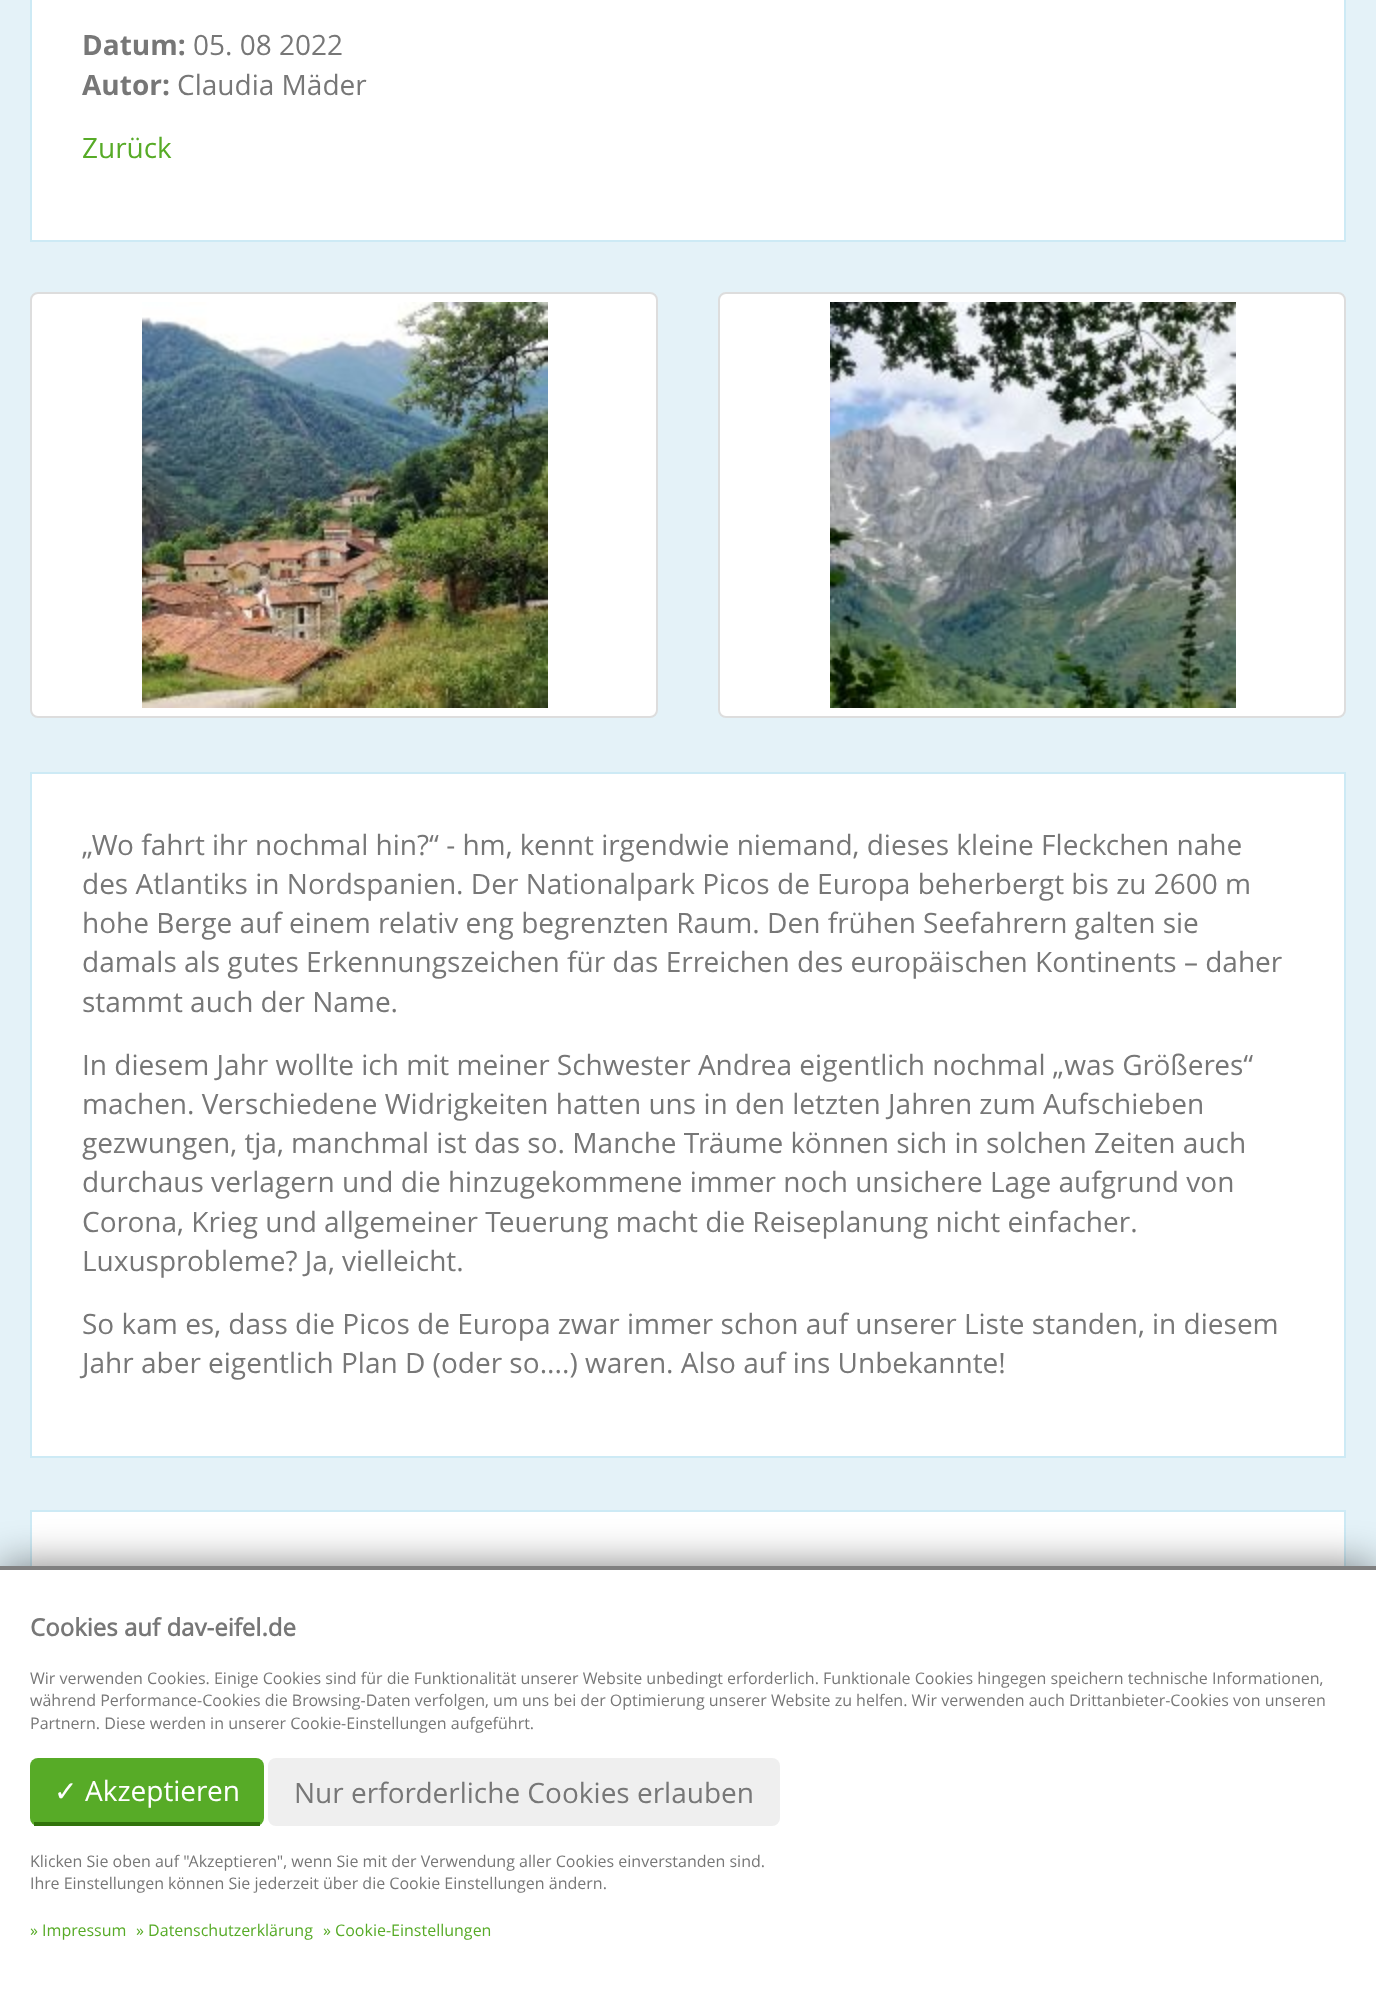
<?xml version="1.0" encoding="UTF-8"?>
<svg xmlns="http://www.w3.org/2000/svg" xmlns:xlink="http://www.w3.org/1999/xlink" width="1376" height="2006">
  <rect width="100%" height="100%" fill="#e4f2f8" />
  <rect x="31" y="-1" width="1314" height="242" fill="#ffffff" stroke="#cdeaf5" stroke-width="2" />
  <rect x="31" y="293" width="626" height="424" rx="7" fill="#ffffff" stroke="#dddddd" stroke-width="2" />
  <image x="142" y="302" width="406" height="406" xlink:href="image1.png" />
  <rect x="719" y="293" width="626" height="424" rx="7" fill="#ffffff" stroke="#dddddd" stroke-width="2" />
  <image x="830" y="302" width="406" height="406" xlink:href="image2.png" />
  <rect x="31" y="773" width="1314" height="684" fill="#ffffff" stroke="#cdeaf5" stroke-width="2" />
  <rect x="32" y="1512" width="1312" height="54" fill="#ffffff" />
  <rect x="31" y="1511" width="1314" height="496" fill="none" stroke="#cdeaf5" stroke-width="2" />
  <rect y="1566" width="1376" height="440" fill="#000000" fill-opacity="0.5" filter="blur(20px)" />
  <rect y="1570" width="1376" height="436" fill="#ffffff" />
  <rect y="1566" width="1376" height="4" fill="#808080" />
  <rect x="30" y="1758" width="234" height="68" rx="8" fill="#57ab27" />
  <rect x="34" y="1822" width="226" height="4" fill="#31730b" />
  <rect x="268" y="1758" width="512" height="68" rx="8" fill="#efefef" />
  <text x="82" y="55" style="font-family: Open Sans; font-size: 28px; font-weight: bold; fill: #777777">Datum:</text>
  <text x="193" y="55" style="font-family: Open Sans; font-size: 28px; fill: #777777">05. 08 2022</text>
  <text x="82" y="95" style="font-family: Open Sans; font-size: 28px; font-weight: bold; fill: #777777">Autor:</text>
  <text x="177" y="95" style="font-family: Open Sans; font-size: 28px; fill: #777777">Claudia Mäder</text>
  <text x="82" y="158" style="font-family: Open Sans; font-size: 28px; fill: #57ab27">Zurück</text>
  <text x="82" y="855" style="font-family: Open Sans; font-size: 28px; fill: #777777">„Wo fahrt ihr nochmal hin?“ - hm, kennt irgendwie niemand, dieses kleine Fleckchen nahe</text>
  <text x="82" y="894" style="font-family: Open Sans; font-size: 28px; fill: #777777">des Atlantiks in Nordspanien. Der Nationalpark Picos de Europa beherbergt bis zu 2600 m</text>
  <text x="82" y="933" style="font-family: Open Sans; font-size: 28px; fill: #777777">hohe Berge auf einem relativ eng begrenzten Raum. Den frühen Seefahrern galten sie</text>
  <text x="82" y="972" style="font-family: Open Sans; font-size: 28px; fill: #777777">damals als gutes Erkennungszeichen für das Erreichen des europäischen Kontinents – daher</text>
  <text x="82" y="1012" style="font-family: Open Sans; font-size: 28px; fill: #777777">stammt auch der Name.</text>
  <text x="82" y="1075" style="font-family: Open Sans; font-size: 28px; fill: #777777">In diesem Jahr wollte ich mit meiner Schwester Andrea eigentlich nochmal „was Größeres“</text>
  <text x="82" y="1114" style="font-family: Open Sans; font-size: 28px; fill: #777777">machen. Verschiedene Widrigkeiten hatten uns in den letzten Jahren zum Aufschieben</text>
  <text x="82" y="1153" style="font-family: Open Sans; font-size: 28px; fill: #777777">gezwungen, tja, manchmal ist das so. Manche Träume können sich in solchen Zeiten auch</text>
  <text x="82" y="1192" style="font-family: Open Sans; font-size: 28px; fill: #777777">durchaus verlagern und die hinzugekommene immer noch unsichere Lage aufgrund von</text>
  <text x="82" y="1232" style="font-family: Open Sans; font-size: 28px; fill: #777777">Corona, Krieg und allgemeiner Teuerung macht die Reiseplanung nicht einfacher.</text>
  <text x="82" y="1271" style="font-family: Open Sans; font-size: 28px; fill: #777777">Luxusprobleme? Ja, vielleicht.</text>
  <text x="82" y="1334" style="font-family: Open Sans; font-size: 28px; fill: #777777">So kam es, dass die Picos de Europa zwar immer schon auf unserer Liste standen, in diesem</text>
  <text x="82" y="1373" style="font-family: Open Sans; font-size: 28px; fill: #777777">Jahr aber eigentlich Plan D (oder so....) waren. Also auf ins Unbekannte!</text>
  <text x="30" y="1636" style="font-family: 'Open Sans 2'; font-size: 24px; font-weight: bold; fill: #777777">Cookies auf dav-eifel.de</text>
  <text x="30" y="1684" style="font-family: Open Sans; font-size: 16px; fill: #777777">Wir verwenden Cookies. Einige Cookies sind für die Funktionalität unserer Website unbedingt erforderlich. Funktionale Cookies hingegen speichern technische Informationen,</text>
  <text x="30" y="1706" style="font-family: Open Sans; font-size: 16px; fill: #777777">während Performance-Cookies die Browsing-Daten verfolgen, um uns bei der Optimierung unserer Website zu helfen. Wir verwenden auch Drittanbieter-Cookies von unseren</text>
  <text x="30" y="1729" style="font-family: Open Sans; font-size: 16px; fill: #777777">Partnern. Diese werden in unserer Cookie-Einstellungen aufgeführt.</text>
  <text x="54" y="1801" style="font-family: DejaVu Sans; font-size: 28px; fill: #ffffff">✓</text>
  <text x="85" y="1801" style="font-family: Open Sans; font-size: 28px; fill: #ffffff">Akzeptieren</text>
  <text x="294" y="1803" style="font-family: Open Sans; font-size: 28px; fill: #777777">Nur erforderliche Cookies erlauben</text>
  <text x="30" y="1867" style="font-family: Open Sans; font-size: 16px; fill: #777777">Klicken Sie oben auf "Akzeptieren", wenn Sie mit der Verwendung aller Cookies einverstanden sind.</text>
  <text x="30" y="1889" style="font-family: Open Sans; font-size: 16px; fill: #777777">Ihre Einstellungen können Sie jederzeit über die Cookie Einstellungen ändern.</text>
  <text x="30" y="1936" style="font-family: Open Sans; font-size: 16px; fill: #57ab27">» Impressum</text>
  <text x="136" y="1936" style="font-family: Open Sans; font-size: 16px; fill: #57ab27">» Datenschutzerklärung</text>
  <text x="323" y="1936" style="font-family: Open Sans; font-size: 16px; fill: #57ab27">» Cookie-Einstellungen</text>
</svg>
